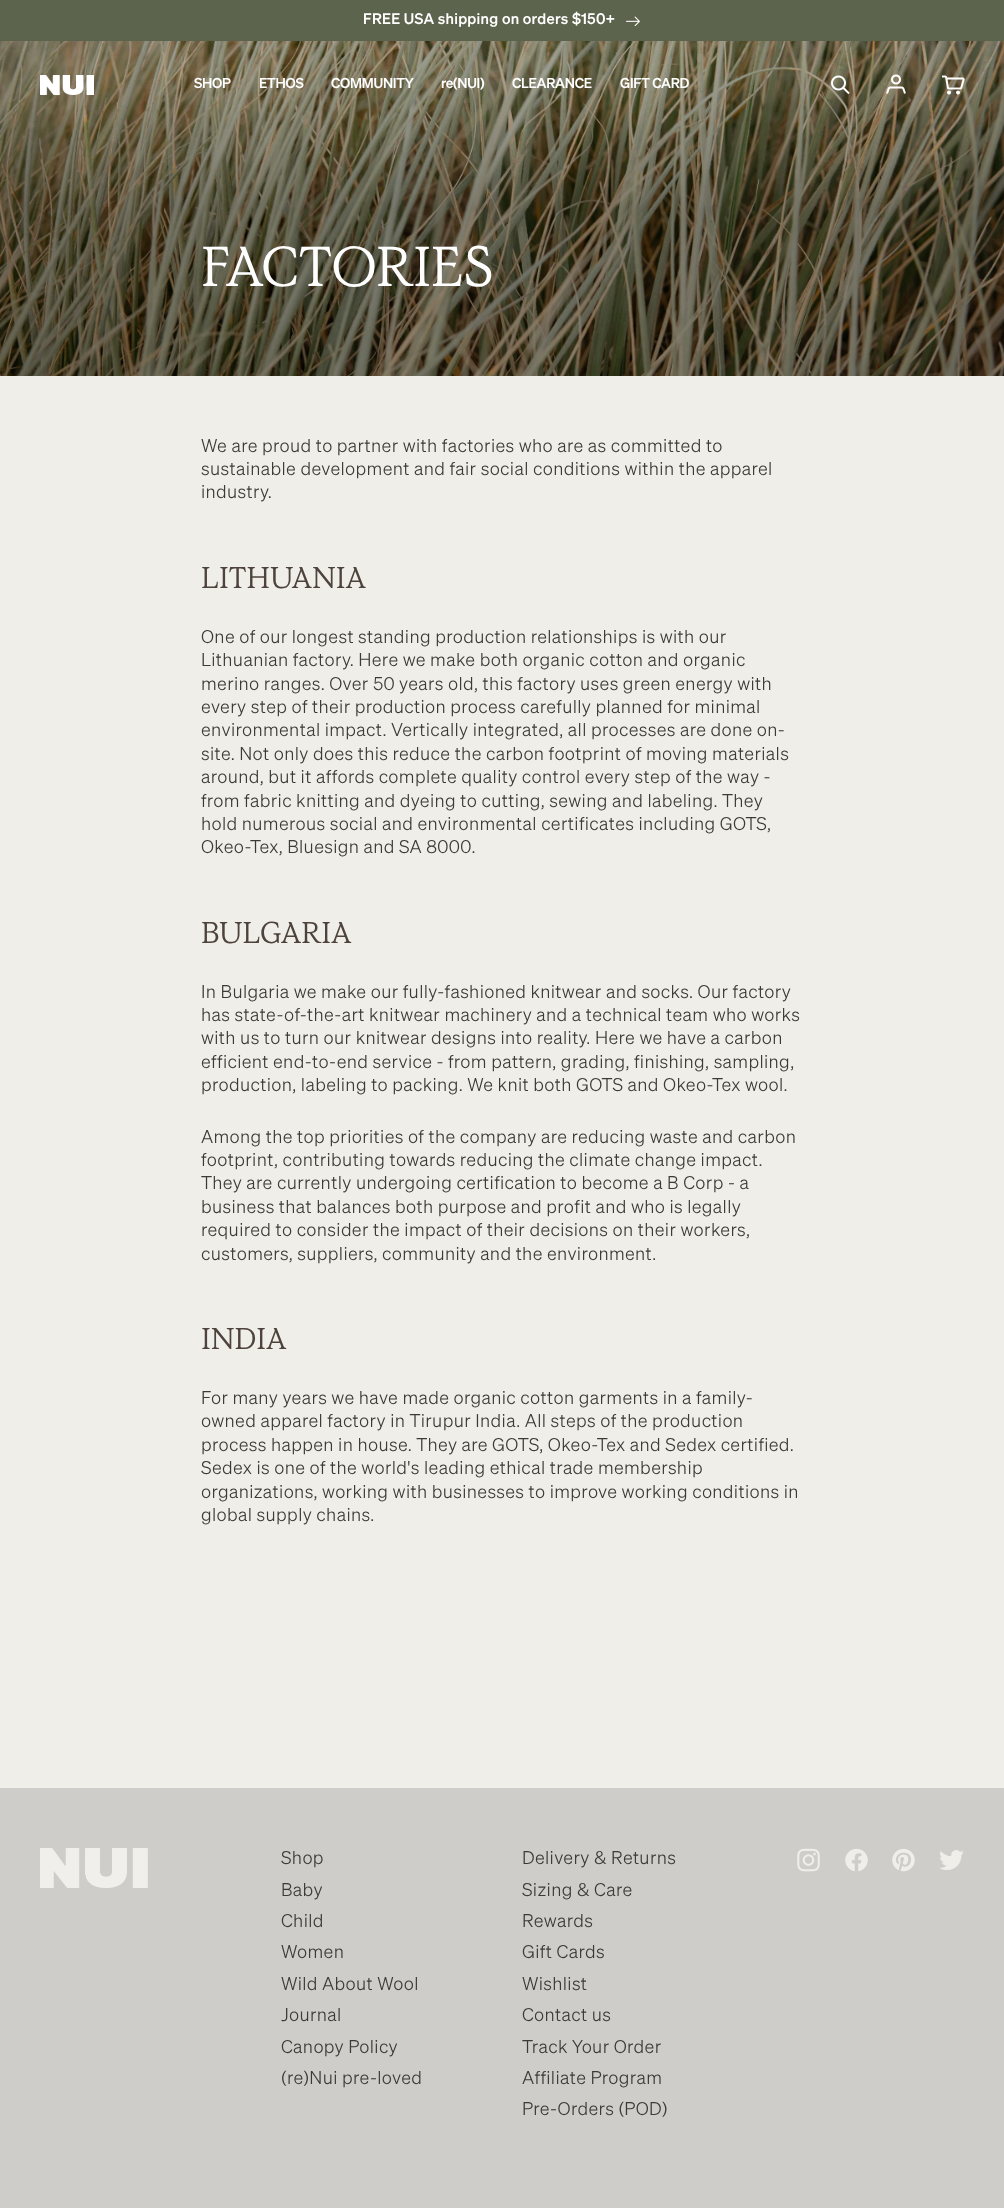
<?xml version="1.0" encoding="UTF-8"?>
<svg xmlns="http://www.w3.org/2000/svg" xmlns:xlink="http://www.w3.org/1999/xlink" width="1004" height="2208">
  <rect width="100%" height="100%" fill="#f0eee9" />
  <rect y="40" width="1004" height="1" fill="#5c624c" />
  <rect width="1004" height="40" fill="#5d644d" />
  <image x="626" y="16" width="14" height="10" xlink:href="image1.png" />
  <image x="0" y="41" width="1004" height="335" xlink:href="image6.png" />
  <image x="40" y="75" width="54" height="20" xlink:href="image2.png" />
  <image x="831" y="75" width="19" height="20" xlink:href="image3.png" />
  <image x="886" y="74" width="20" height="20" xlink:href="image4.png" />
  <image x="942" y="75" width="23" height="20" xlink:href="image5.png" />
  <rect y="1788" width="1004" height="420" fill="#cfcdc9" />
  <image x="40" y="1848" width="108" height="40" xlink:href="image7.png" />
  <image x="797" y="1848" width="23" height="24" xlink:href="image8.png" />
  <image x="845" y="1848" width="23" height="24" xlink:href="image9.png" />
  <image x="892" y="1848" width="23" height="24" xlink:href="image10.png" />
  <image x="939" y="1850" width="25" height="20" xlink:href="image11.png" />
  <text x="363" y="24" style="font-family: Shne; font-size: 15px; font-weight: 500; letter-spacing: 0.3px; fill: #ffffff">FREE USA shipping on orders $150+</text>
  <text x="194" y="88" style="font-family: Shne; font-size: 14px; font-weight: 500; letter-spacing: -0.25px; fill: #ffffff">SHOP</text>
  <text x="259" y="88" style="font-family: Shne; font-size: 14px; font-weight: 500; letter-spacing: -0.25px; fill: #ffffff">ETHOS</text>
  <text x="331" y="88" style="font-family: Shne; font-size: 14px; font-weight: 500; letter-spacing: -0.25px; fill: #ffffff">COMMUNITY</text>
  <text x="441" y="88" style="font-family: Shne; font-size: 14px; font-weight: 500; letter-spacing: -0.25px; fill: #ffffff">re(NUI)</text>
  <text x="512" y="88" style="font-family: Shne; font-size: 14px; font-weight: 500; letter-spacing: -0.25px; fill: #ffffff">CLEARANCE</text>
  <text x="620" y="88" style="font-family: Shne; font-size: 14px; font-weight: 500; letter-spacing: -0.25px; fill: #ffffff">GIFT CARD</text>
  <text x="201" y="286" style="font-family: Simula; font-size: 56px; letter-spacing: -0.5px; fill: #ffffff">FACTORIES</text>
  <text x="201" y="452" style="font-family: Shne; font-size: 18px; font-weight: 300; letter-spacing: 0.35px; fill: #3d3935">We are proud to partner with factories who are as committed to</text>
  <text x="201" y="475" style="font-family: Shne; font-size: 18px; font-weight: 300; letter-spacing: 0.35px; fill: #3d3935">sustainable development and fair social conditions within the apparel</text>
  <text x="201" y="498" style="font-family: Shne; font-size: 18px; font-weight: 300; letter-spacing: 0.35px; fill: #3d3935">industry.</text>
  <text x="201" y="588" style="font-family: Simula; font-size: 30px; fill: #4d433c">LITHUANIA</text>
  <text x="201" y="643" style="font-family: Shne; font-size: 18px; font-weight: 300; letter-spacing: 0.35px; fill: #3d3935">One of our longest standing production relationships is with our</text>
  <text x="201" y="666" style="font-family: Shne; font-size: 18px; font-weight: 300; letter-spacing: 0.35px; fill: #3d3935">Lithuanian factory. Here we make both organic cotton and organic</text>
  <text x="201" y="690" style="font-family: Shne; font-size: 18px; font-weight: 300; letter-spacing: 0.35px; fill: #3d3935">merino ranges. Over 50 years old, this factory uses green energy with</text>
  <text x="201" y="713" style="font-family: Shne; font-size: 18px; font-weight: 300; letter-spacing: 0.35px; fill: #3d3935">every step of their production process carefully planned for minimal</text>
  <text x="201" y="736" style="font-family: Shne; font-size: 18px; font-weight: 300; letter-spacing: 0.35px; fill: #3d3935">environmental impact. Vertically integrated, all processes are done on-</text>
  <text x="201" y="760" style="font-family: Shne; font-size: 18px; font-weight: 300; letter-spacing: 0.35px; fill: #3d3935">site. Not only does this reduce the carbon footprint of moving materials</text>
  <text x="201" y="783" style="font-family: Shne; font-size: 18px; font-weight: 300; letter-spacing: 0.35px; fill: #3d3935">around, but it affords complete quality control every step of the way -</text>
  <text x="201" y="807" style="font-family: Shne; font-size: 18px; font-weight: 300; letter-spacing: 0.35px; fill: #3d3935">from fabric knitting and dyeing to cutting, sewing and labeling. They</text>
  <text x="201" y="830" style="font-family: Shne; font-size: 18px; font-weight: 300; letter-spacing: 0.35px; fill: #3d3935">hold numerous social and environmental certificates including GOTS,</text>
  <text x="201" y="853" style="font-family: Shne; font-size: 18px; font-weight: 300; letter-spacing: 0.35px; fill: #3d3935">Okeo-Tex, Bluesign and SA 8000.</text>
  <text x="201" y="943" style="font-family: Simula; font-size: 30px; fill: #4d433c">BULGARIA</text>
  <text x="201" y="998" style="font-family: Shne; font-size: 18px; font-weight: 300; letter-spacing: 0.35px; fill: #3d3935">In Bulgaria we make our fully-fashioned knitwear and socks. Our factory</text>
  <text x="201" y="1021" style="font-family: Shne; font-size: 18px; font-weight: 300; letter-spacing: 0.35px; fill: #3d3935">has state-of-the-art knitwear machinery and a technical team who works</text>
  <text x="201" y="1044" style="font-family: Shne; font-size: 18px; font-weight: 300; letter-spacing: 0.35px; fill: #3d3935">with us to turn our knitwear designs into reality. Here we have a carbon</text>
  <text x="201" y="1068" style="font-family: Shne; font-size: 18px; font-weight: 300; letter-spacing: 0.35px; fill: #3d3935">efficient end-to-end service - from pattern, grading, finishing, sampling,</text>
  <text x="201" y="1091" style="font-family: Shne; font-size: 18px; font-weight: 300; letter-spacing: 0.35px; fill: #3d3935">production, labeling to packing. We knit both GOTS and Okeo-Tex wool.</text>
  <text x="201" y="1143" style="font-family: Shne; font-size: 18px; font-weight: 300; letter-spacing: 0.35px; fill: #3d3935">Among the top priorities of the company are reducing waste and carbon</text>
  <text x="201" y="1166" style="font-family: Shne; font-size: 18px; font-weight: 300; letter-spacing: 0.35px; fill: #3d3935">footprint, contributing towards reducing the climate change impact.</text>
  <text x="201" y="1189" style="font-family: Shne; font-size: 18px; font-weight: 300; letter-spacing: 0.35px; fill: #3d3935">They are currently undergoing certification to become a B Corp - a</text>
  <text x="201" y="1213" style="font-family: Shne; font-size: 18px; font-weight: 300; letter-spacing: 0.35px; fill: #3d3935">business that balances both purpose and profit and who is legally</text>
  <text x="201" y="1236" style="font-family: Shne; font-size: 18px; font-weight: 300; letter-spacing: 0.35px; fill: #3d3935">required to consider the impact of their decisions on their workers,</text>
  <text x="201" y="1260" style="font-family: Shne; font-size: 18px; font-weight: 300; letter-spacing: 0.35px; fill: #3d3935">customers, suppliers, community and the environment.</text>
  <text x="201" y="1349" style="font-family: Simula; font-size: 30px; fill: #4d433c">INDIA</text>
  <text x="201" y="1404" style="font-family: Shne; font-size: 18px; font-weight: 300; letter-spacing: 0.35px; fill: #3d3935">For many years we have made organic cotton garments in a family-</text>
  <text x="201" y="1427" style="font-family: Shne; font-size: 18px; font-weight: 300; letter-spacing: 0.35px; fill: #3d3935">owned apparel factory in Tirupur India. All steps of the production</text>
  <text x="201" y="1451" style="font-family: Shne; font-size: 18px; font-weight: 300; letter-spacing: 0.35px; fill: #3d3935">process happen in house. They are GOTS, Okeo-Tex and Sedex certified.</text>
  <text x="201" y="1474" style="font-family: Shne; font-size: 18px; font-weight: 300; letter-spacing: 0.35px; fill: #3d3935">Sedex is one of the world's leading ethical trade membership</text>
  <text x="201" y="1498" style="font-family: Shne; font-size: 18px; font-weight: 300; letter-spacing: 0.35px; fill: #3d3935">organizations, working with businesses to improve working conditions in</text>
  <text x="201" y="1521" style="font-family: Shne; font-size: 18px; font-weight: 300; letter-spacing: 0.35px; fill: #3d3935">global supply chains.</text>
  <text x="281" y="1864" style="font-family: Shne; font-size: 18px; font-weight: 300; letter-spacing: 0.35px; fill: #3d3935">Shop</text>
  <text x="281" y="1896" style="font-family: Shne; font-size: 18px; font-weight: 300; letter-spacing: 0.35px; fill: #3d3935">Baby</text>
  <text x="281" y="1927" style="font-family: Shne; font-size: 18px; font-weight: 300; letter-spacing: 0.35px; fill: #3d3935">Child</text>
  <text x="281" y="1958" style="font-family: Shne; font-size: 18px; font-weight: 300; letter-spacing: 0.35px; fill: #3d3935">Women</text>
  <text x="281" y="1990" style="font-family: Shne; font-size: 18px; font-weight: 300; letter-spacing: 0.35px; fill: #3d3935">Wild About Wool</text>
  <text x="281" y="2021" style="font-family: Shne; font-size: 18px; font-weight: 300; letter-spacing: 0.35px; fill: #3d3935">Journal</text>
  <text x="281" y="2053" style="font-family: Shne; font-size: 18px; font-weight: 300; letter-spacing: 0.35px; fill: #3d3935">Canopy Policy</text>
  <text x="281" y="2084" style="font-family: Shne; font-size: 18px; font-weight: 300; letter-spacing: 0.35px; fill: #3d3935">(re)Nui pre-loved</text>
  <text x="522" y="1864" style="font-family: Shne; font-size: 18px; font-weight: 300; letter-spacing: 0.35px; fill: #3d3935">Delivery &amp; Returns</text>
  <text x="522" y="1896" style="font-family: Shne; font-size: 18px; font-weight: 300; letter-spacing: 0.35px; fill: #3d3935">Sizing &amp; Care</text>
  <text x="522" y="1927" style="font-family: Shne; font-size: 18px; font-weight: 300; letter-spacing: 0.35px; fill: #3d3935">Rewards</text>
  <text x="522" y="1958" style="font-family: Shne; font-size: 18px; font-weight: 300; letter-spacing: 0.35px; fill: #3d3935">Gift Cards</text>
  <text x="522" y="1990" style="font-family: Shne; font-size: 18px; font-weight: 300; letter-spacing: 0.35px; fill: #3d3935">Wishlist</text>
  <text x="522" y="2021" style="font-family: Shne; font-size: 18px; font-weight: 300; letter-spacing: 0.35px; fill: #3d3935">Contact us</text>
  <text x="522" y="2053" style="font-family: Shne; font-size: 18px; font-weight: 300; letter-spacing: 0.35px; fill: #3d3935">Track Your Order</text>
  <text x="522" y="2084" style="font-family: Shne; font-size: 18px; font-weight: 300; letter-spacing: 0.35px; fill: #3d3935">Affiliate Program</text>
  <text x="522" y="2115" style="font-family: Shne; font-size: 18px; font-weight: 300; letter-spacing: 0.35px; fill: #3d3935">Pre-Orders (POD)</text>
</svg>
